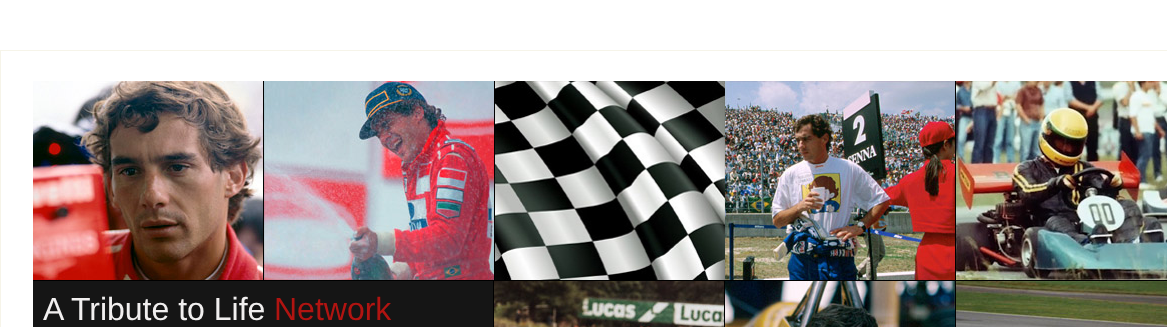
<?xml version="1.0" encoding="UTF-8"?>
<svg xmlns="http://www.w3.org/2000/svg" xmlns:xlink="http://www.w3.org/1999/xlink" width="1167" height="327">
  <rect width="100%" height="100%" fill="#ffffff" />
  <rect y="50" width="1167" height="1" fill="#f6f4e9" />
  <rect y="50" width="1" height="277" fill="#f6f4e9" />
  <rect x="33" y="280" width="1134" height="1" fill="#000000" />
  <rect x="263" y="81" width="1" height="199" fill="#000000" />
  <image x="33" y="81" width="230" height="199" xlink:href="image1.png" />
  <rect x="494" y="81" width="1" height="199" fill="#000000" />
  <image x="264" y="81" width="230" height="199" xlink:href="image2.png" />
  <image x="495" y="81" width="230" height="199" xlink:href="image3.png" />
  <rect x="955" y="81" width="1" height="199" fill="#000000" />
  <image x="725" y="81" width="230" height="199" xlink:href="image4.png" />
  <image x="956" y="81" width="211" height="199" xlink:href="image5.png" />
  <rect x="33" y="281" width="460" height="46" fill="#151515" />
  <rect x="493" y="281" width="1" height="46" fill="#000000" />
  <rect x="724" y="281" width="1" height="46" fill="#000000" />
  <image x="494" y="281" width="230" height="46" xlink:href="image6.png" />
  <rect x="955" y="281" width="1" height="46" fill="#000000" />
  <image x="725" y="281" width="230" height="46" xlink:href="image7.png" />
  <image x="956" y="281" width="211" height="46" xlink:href="image8.png" />
  <text x="43" y="320" style="font-family: Liberation Sans; font-size: 32px; fill: #f1efef">A Tribute to Life</text>
  <text x="274" y="320" style="font-family: Liberation Sans; font-size: 32px; fill: #b11411">Network</text>
</svg>
